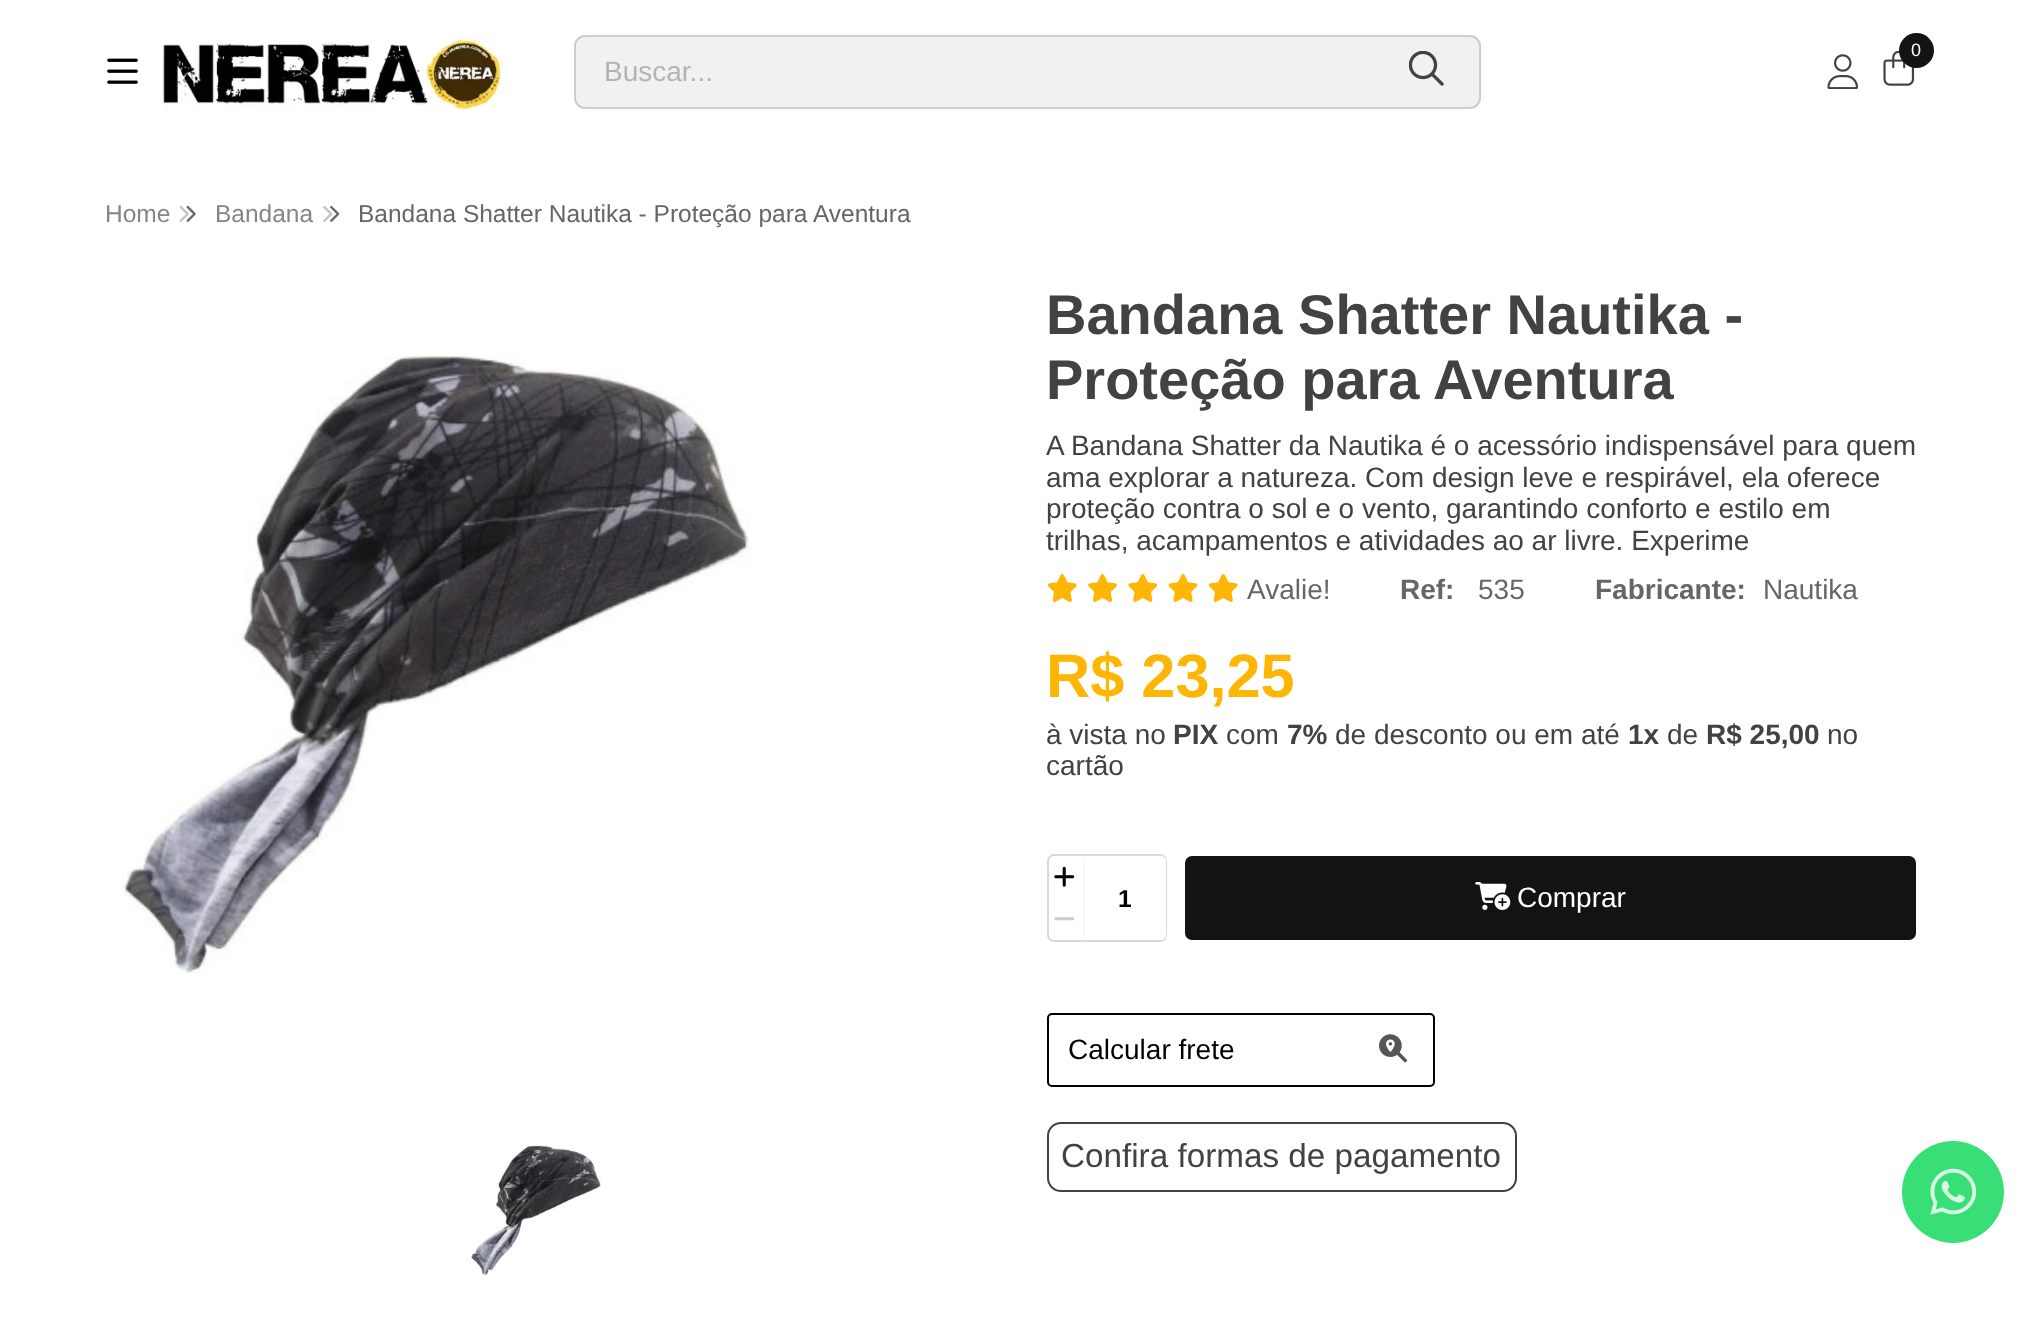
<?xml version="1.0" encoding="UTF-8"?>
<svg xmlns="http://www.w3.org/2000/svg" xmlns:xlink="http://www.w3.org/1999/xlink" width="2021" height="1329">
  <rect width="100%" height="100%" fill="#ffffff" />
  <image x="107" y="58" width="31" height="26" xlink:href="image1.png" />
  <image x="161" y="38" width="341" height="74" xlink:href="image2.png" />
  <image x="1883" y="51" width="32" height="35" xlink:href="image3.png" />
  <circle cx="1916.5" cy="50.5" r="17.5" fill="#131313" />
  <image x="1827" y="54" width="31" height="35" xlink:href="image4.png" />
  <rect x="574" y="35" width="907" height="74" rx="11" fill="#f1f1f1" />
  <rect x="575" y="36" width="905" height="72" rx="10" fill="none" stroke="#424242" stroke-opacity="0.2" stroke-width="2" />
  <image x="1409" y="51" width="35" height="35" xlink:href="image5.png" />
  <image x="179" y="205" width="17" height="17" xlink:href="image6.png" />
  <image x="323" y="205" width="17" height="17" xlink:href="image7.png" />
  <image x="121" y="354" width="629" height="620" xlink:href="image8.png" />
  <image x="471" y="1145" width="130" height="131" xlink:href="image9.png" />
  <image x="1047" y="574" width="30" height="28" xlink:href="image10.png" />
  <image x="1088" y="574" width="29" height="28" xlink:href="image11.png" />
  <image x="1128" y="574" width="30" height="28" xlink:href="image12.png" />
  <image x="1168" y="574" width="30" height="28" xlink:href="image13.png" />
  <image x="1208" y="574" width="30" height="28" xlink:href="image10.png" />
  <rect x="1048" y="855" width="118" height="86" rx="6" fill="none" stroke="#d9d9d9" stroke-width="2" />
  <image x="1054" y="866" width="21" height="21" xlink:href="image14.png" />
  <rect x="1083" y="856" width="83" height="84" rx="5" fill="#ffffff" />
  <rect x="1083" y="859" width="2" height="79" fill="#f7f7f7" />
  <image x="1054" y="917" width="21" height="4" xlink:href="image15.png" />
  <rect x="1185" y="856" width="731" height="84" rx="7" fill="#131313" />
  <image x="1475" y="882" width="36" height="28" xlink:href="image16.png" />
  <rect x="1048" y="1014" width="386" height="72" rx="4" fill="none" stroke="#000000" stroke-width="2" />
  <image x="1379" y="1034" width="28" height="29" xlink:href="image17.png" />
  <rect x="1048" y="1123" width="468" height="68" rx="13" fill="none" stroke="#424242" stroke-width="2" />
  <circle cx="1953" cy="1192" r="51" fill="#38df77" />
  <image x="1930" y="1168" width="46" height="47" xlink:href="image18.png" />
  <text x="1911" y="56" style="font-family: Liberation Sans; font-size: 18px; fill: #ffffff">0</text>
  <text x="604" y="81" style="font-family: Liberation Sans; font-size: 28px; fill: #b3b3b3">Buscar...</text>
  <text x="105" y="222" style="font-family: Liberation Sans; font-size: 24.5px; fill: #858585">Home</text>
  <text x="215" y="222" style="font-family: Liberation Sans; font-size: 24.5px; fill: #858585">Bandana</text>
  <text x="358" y="222" style="font-family: Liberation Sans; font-size: 24.5px; fill: #666666">Bandana Shatter Nautika - Proteção para Aventura</text>
  <text x="1046" y="334" style="font-family: Liberation Sans; font-size: 56px; font-weight: bold; fill: #424242">Bandana Shatter Nautika -</text>
  <text x="1046" y="399" style="font-family: Liberation Sans; font-size: 56px; font-weight: bold; fill: #424242">Proteção para Aventura</text>
  <text x="1046" y="455" style="font-family: Liberation Sans; font-size: 28px; fill: #424242">A Bandana Shatter da Nautika é o acessório indispensável para quem</text>
  <text x="1046" y="487" style="font-family: Liberation Sans; font-size: 28px; fill: #424242">ama explorar a natureza. Com design leve e respirável, ela oferece</text>
  <text x="1046" y="518" style="font-family: Liberation Sans; font-size: 28px; fill: #424242">proteção contra o sol e o vento, garantindo conforto e estilo em</text>
  <text x="1046" y="550" style="font-family: Liberation Sans; font-size: 28px; fill: #424242">trilhas, acampamentos e atividades ao ar livre. Experime</text>
  <text x="1247" y="599" style="font-family: Liberation Sans; font-size: 28px; fill: #666666">Avalie!</text>
  <text x="1400" y="599" style="font-family: Liberation Sans; font-size: 28px; font-weight: bold; fill: #666666">Ref:</text>
  <text x="1478" y="599" style="font-family: Liberation Sans; font-size: 28px; fill: #666666">535</text>
  <text x="1595" y="599" style="font-family: Liberation Sans; font-size: 28px; font-weight: bold; fill: #666666">Fabricante:</text>
  <text x="1763" y="599" style="font-family: Liberation Sans; font-size: 28px; fill: #666666">Nautika</text>
  <text x="1046" y="697" style="font-family: Liberation Sans; font-size: 61.25px; font-weight: bold; fill: #ffb503">R$ 23,25</text>
  <text x="1046" y="744" style="font-family: Liberation Sans; font-size: 28px; fill: #424242">à vista no</text>
  <text x="1173" y="744" style="font-family: Liberation Sans; font-size: 28px; font-weight: bold; fill: #424242">PIX</text>
  <text x="1226" y="744" style="font-family: Liberation Sans; font-size: 28px; fill: #424242">com</text>
  <text x="1287" y="744" style="font-family: Liberation Sans; font-size: 28px; font-weight: bold; fill: #424242">7%</text>
  <text x="1335" y="744" style="font-family: Liberation Sans; font-size: 28px; fill: #424242">de desconto ou em até</text>
  <text x="1628" y="744" style="font-family: Liberation Sans; font-size: 28px; font-weight: bold; fill: #424242">1x</text>
  <text x="1667" y="744" style="font-family: Liberation Sans; font-size: 28px; fill: #424242">de</text>
  <text x="1706" y="744" style="font-family: Liberation Sans; font-size: 28px; font-weight: bold; fill: #424242">R$ 25,00</text>
  <text x="1827" y="744" style="font-family: Liberation Sans; font-size: 28px; fill: #424242">no</text>
  <text x="1046" y="775" style="font-family: Liberation Sans; font-size: 28px; fill: #424242">cartão</text>
  <text x="1118" y="907" style="font-family: Liberation Sans; font-size: 24.5px; font-weight: bold; fill: #000000">1</text>
  <text x="1517" y="907" style="font-family: Liberation Sans; font-size: 28px; fill: #ffffff">Comprar</text>
  <text x="1068" y="1059" style="font-family: Liberation Sans; font-size: 28px; fill: #000000">Calcular frete</text>
  <text x="1061" y="1167" style="font-family: Liberation Sans; font-size: 33.25px; fill: #424242">Confira formas de pagamento</text>
</svg>
